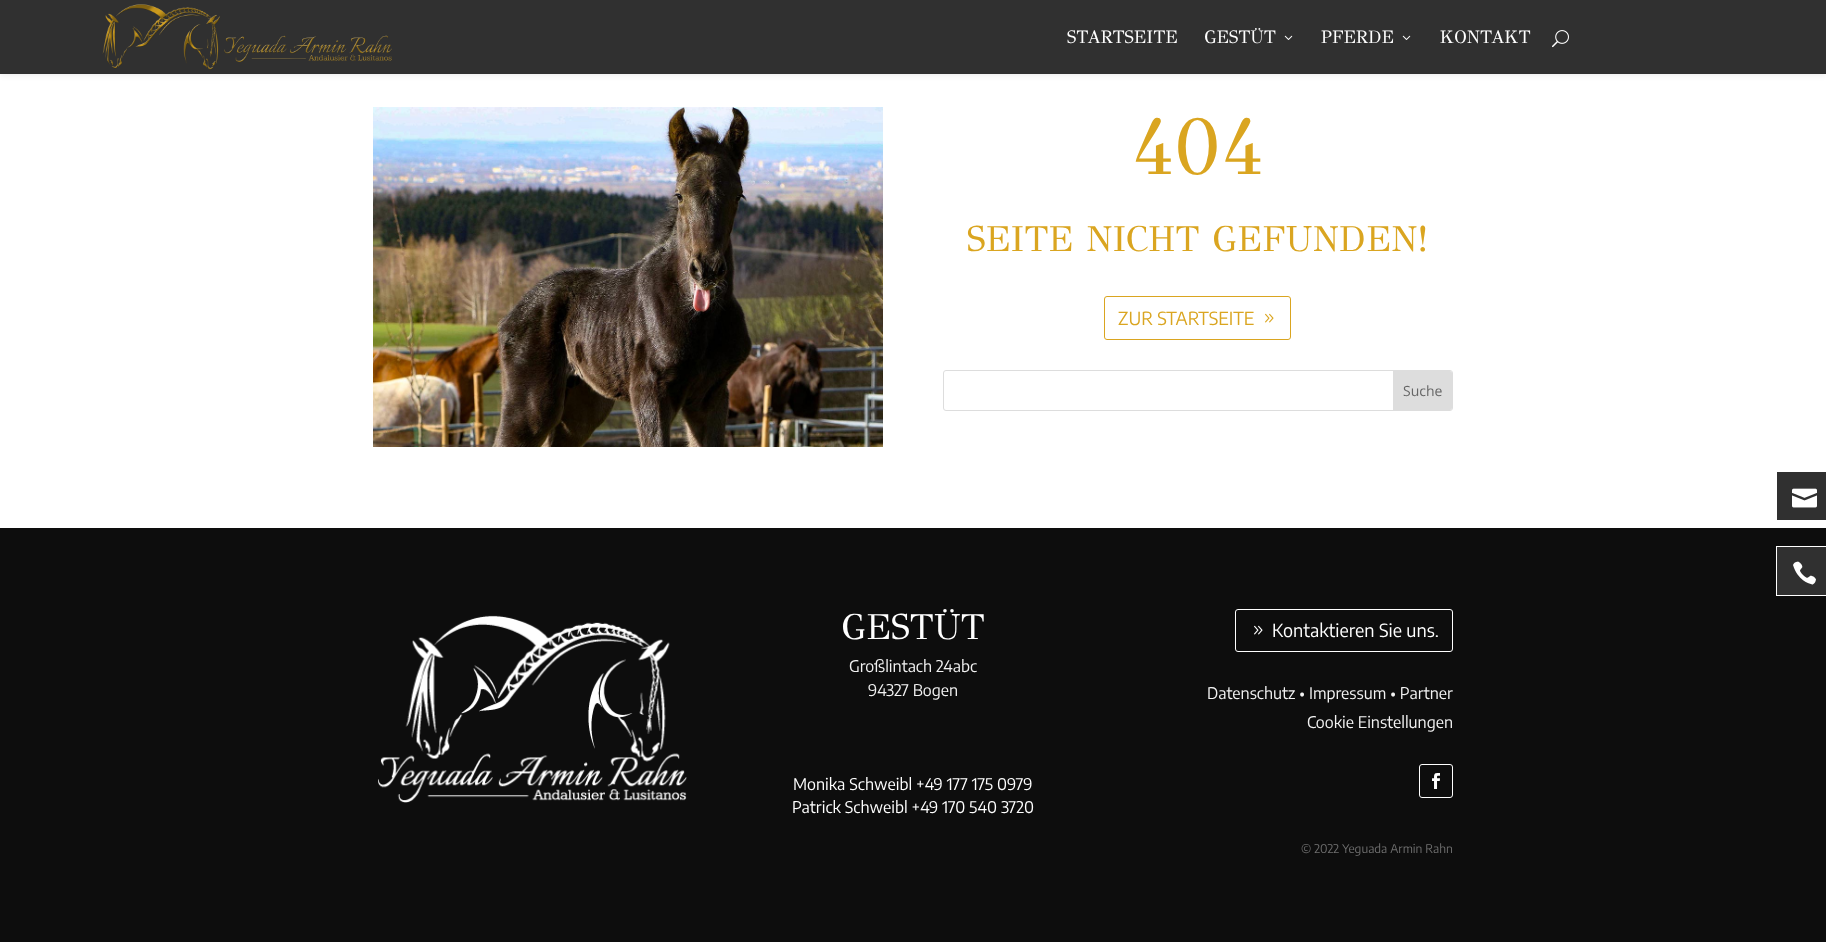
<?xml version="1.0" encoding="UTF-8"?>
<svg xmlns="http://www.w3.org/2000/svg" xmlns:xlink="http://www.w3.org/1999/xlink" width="1826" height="942">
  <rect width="100%" height="100%" fill="#ffffff" />
  <rect width="1826" height="74" fill="#000000" fill-opacity="0.1" filter="blur(3.5px)" />
  <rect width="1826" height="74" fill="#303030" />
  <image x="102" y="4" width="290" height="66" xlink:href="image1.png" />
  <image x="1284" y="35" width="9" height="5" xlink:href="image2.png" />
  <image x="1402" y="35" width="9" height="5" xlink:href="image2.png" />
  <image x="1552" y="30" width="17" height="18" xlink:href="image3.png" />
  <image x="373" y="107" width="510" height="340" xlink:href="image4.png" />
  <rect x="1104.5" y="296.5" width="186" height="43" rx="2.5" fill="none" stroke="#daa520" />
  <image x="1265" y="313" width="9" height="10" xlink:href="image5.png" />
  <rect x="943.5" y="370.5" width="509" height="40" rx="2.5" fill="none" stroke="#dddddd" />
  <path d="M 1393 371 h 57 c 1 0 2 1 2 2 v 35 c 0 1 -1 2 -2 2 h -57 z" fill="#dddddd" />
  <rect y="528" width="1826" height="414" fill="#0d0d0d" />
  <image x="378" y="615" width="309" height="188" xlink:href="image6.png" />
  <rect x="1235.5" y="609.5" width="217" height="42" rx="2.5" fill="none" stroke="#ffffff" />
  <image x="1254" y="625" width="9" height="10" xlink:href="image7.png" />
  <rect x="1419.5" y="764.5" width="33" height="33" rx="2.5" fill="none" stroke="#ffffff" />
  <image x="1432" y="773" width="8" height="16" xlink:href="image8.png" />
  <rect x="1777" y="472" width="49" height="48" fill="#303030" />
  <image x="1792" y="488" width="25" height="20" xlink:href="image9.png" />
  <rect x="1776.5" y="546.5" width="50" height="49" fill="#303030" stroke="#ffffff" />
  <image x="1793" y="561" width="23" height="24" xlink:href="image10.png" />
  <text x="1067" y="43" style="font-family: GFS Didot; font-size: 18px; fill: #ffffff">STARTSEITE</text>
  <text x="1204" y="43" style="font-family: GFS Didot; font-size: 18px; fill: #ffffff">GESTÜT</text>
  <text x="1321" y="43" style="font-family: GFS Didot; font-size: 18px; fill: #ffffff">PFERDE</text>
  <text x="1440" y="43" style="font-family: GFS Didot; font-size: 18px; fill: #ffffff">KONTAKT</text>
  <text x="1131" y="174" style="font-family: GFS Didot; font-size: 80px; fill: #daa520">404</text>
  <text x="967" y="251" style="font-family: GFS Didot; font-size: 36px; fill: #daa520">SEITE NICHT GEFUNDEN!</text>
  <text x="1118" y="325" style="font-family: Encode Sans Condensed; font-size: 18px; font-weight: 100; fill: #daa520">ZUR STARTSEITE</text>
  <text x="1403" y="396" style="font-family: Open Sans; font-size: 14px; fill: #666666">Suche</text>
  <text x="841" y="639" style="font-family: GFS Didot; font-size: 36px; fill: #ffffff">GESTÜT</text>
  <text x="849" y="672" style="font-family: Encode Sans Condensed; font-size: 16px; font-weight: 100; fill: #f2f2f2">Großlintach 24abc</text>
  <text x="868" y="696" style="font-family: Encode Sans Condensed; font-size: 16px; font-weight: 100; fill: #f2f2f2">94327 Bogen</text>
  <text x="793" y="790" style="font-family: Encode Sans Condensed; font-size: 16px; font-weight: 100; fill: #ffffff">Monika Schweibl +49 177 175 0979</text>
  <text x="792" y="813" style="font-family: Encode Sans Condensed; font-size: 16px; font-weight: 100; fill: #ffffff">Patrick Schweibl +49 170 540 3720</text>
  <text x="1272" y="637" style="font-family: Encode Sans Condensed; font-size: 18px; font-weight: 100; fill: #ffffff">Kontaktieren Sie uns.</text>
  <text x="1207" y="699" style="font-family: Encode Sans Condensed; font-size: 16px; font-weight: 100; fill: #f2f2f2">Datenschutz • Impressum • Partner</text>
  <text x="1307" y="728" style="font-family: Encode Sans Condensed; font-size: 16px; font-weight: 100; fill: #f2f2f2">Cookie Einstellungen</text>
  <text x="1301" y="853" style="font-family: Encode Sans Condensed; font-size: 12px; font-weight: 100; fill: #6e6e6e">© 2022 Yeguada Armin Rahn</text>
</svg>
